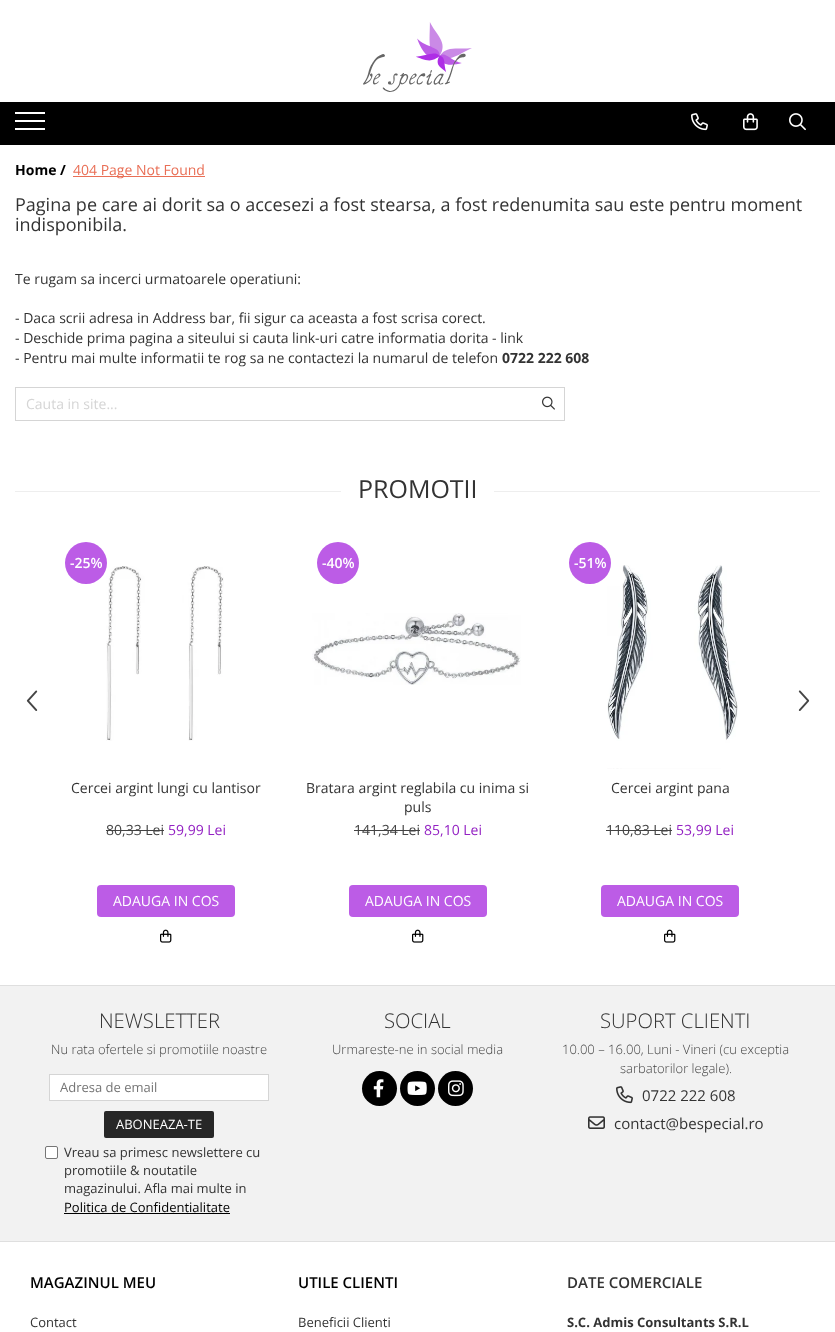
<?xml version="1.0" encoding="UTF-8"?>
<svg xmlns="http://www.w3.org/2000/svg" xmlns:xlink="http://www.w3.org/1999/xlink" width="835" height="1332">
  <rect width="100%" height="100%" fill="#ffffff" />
  <image x="363" y="22" width="109" height="70" xlink:href="image1.png" />
  <rect y="102" width="835" height="43" fill="#000000" />
  <rect x="15" y="120" width="30" height="2" fill="#ffffff" />
  <rect x="15" y="112" width="30" height="2" fill="#ffffff" />
  <rect x="15" y="128" width="30" height="2" fill="#ffffff" />
  <image x="691" y="113" width="17" height="18" xlink:href="image2.png" />
  <image x="743" y="113" width="15" height="18" xlink:href="image3.png" />
  <image x="789" y="113" width="17" height="18" xlink:href="image4.png" />
  <rect x="73" y="176" width="132" height="1" fill="#e96f56" />
  <rect x="15.5" y="387.5" width="549" height="33" fill="none" stroke="#d5d5d5" />
  <image x="542" y="396" width="13" height="14" xlink:href="image5.png" />
  <rect x="15" y="491" width="805" height="1" fill="#eeeeee" />
  <rect x="341" y="491" width="153" height="1" fill="#ffffff" />
  <image x="106" y="566" width="118" height="175" xlink:href="image7.png" />
  <circle cx="86" cy="563" r="21" fill="#bc5ce6" />
  <rect x="106" y="830" width="58" height="1" fill="#444444" />
  <rect x="97" y="885" width="138" height="32" rx="4" fill="#bc5ce6" />
  <image x="160" y="929" width="12" height="14" xlink:href="image6.png" />
  <circle cx="338" cy="563" r="21" fill="#bc5ce6" />
  <rect x="354" y="830" width="66" height="1" fill="#444444" />
  <rect x="349" y="885" width="138" height="32" rx="4" fill="#bc5ce6" />
  <image x="412" y="929" width="12" height="14" xlink:href="image6.png" />
  <image x="312" y="613" width="209" height="72" xlink:href="image8.png" />
  <image x="607" y="565" width="131" height="204" xlink:href="image9.png" />
  <circle cx="590" cy="563" r="21" fill="#bc5ce6" />
  <rect x="606" y="830" width="66" height="1" fill="#444444" />
  <rect x="601" y="885" width="138" height="32" rx="4" fill="#bc5ce6" />
  <image x="664" y="929" width="12" height="14" xlink:href="image6.png" />
  <image x="26" y="690" width="12" height="21" xlink:href="image10.png" />
  <image x="798" y="690" width="12" height="21" xlink:href="image11.png" />
  <rect y="986" width="835" height="255" fill="#f2f2f2" />
  <rect y="985" width="835" height="1" fill="#dfdfdf" />
  <rect y="1241" width="835" height="1" fill="#dfdfdf" />
  <rect x="49.5" y="1074.5" width="219" height="26" fill="#ffffff" stroke="#d5d5d5" />
  <rect x="104" y="1111" width="110" height="27" rx="2" fill="#272727" />
  <rect x="45.5" y="1146.5" width="12" height="12" rx="1.5" fill="#ffffff" stroke="#767676" />
  <rect x="64" y="1213" width="166" height="1" fill="#000000" />
  <circle cx="379.5" cy="1088.5" r="17.5" fill="#000000" />
  <image x="373" y="1079" width="11" height="19" xlink:href="image12.png" />
  <circle cx="417.5" cy="1088.5" r="17.5" fill="#000000" />
  <image x="407" y="1081" width="20" height="14" xlink:href="image13.png" />
  <circle cx="455.5" cy="1088.5" r="17.5" fill="#000000" />
  <image x="448" y="1080" width="16" height="17" xlink:href="image14.png" />
  <image x="616" y="1086" width="17" height="18" xlink:href="image15.png" />
  <image x="588" y="1116" width="17" height="13" xlink:href="image16.png" />
  <text x="15" y="175" style="font-family: Open Sans; font-size: 14px; font-weight: bold; fill: #000000">Home /</text>
  <text x="73" y="175" style="font-family: Open Sans; font-size: 14px; fill: #e96f56">404 Page Not Found</text>
  <text x="15" y="211" style="font-family: Open Sans; font-size: 18px; fill: #333333">Pagina pe care ai dorit sa o accesezi a fost stearsa, a fost redenumita sau este pentru moment</text>
  <text x="15" y="231" style="font-family: Open Sans; font-size: 18px; fill: #333333">indisponibila.</text>
  <text x="15" y="284" style="font-family: Open Sans; font-size: 14px; fill: #333333">Te rugam sa incerci urmatoarele operatiuni:</text>
  <text x="15" y="323" style="font-family: Open Sans; font-size: 14px; fill: #333333">- Daca scrii adresa in Address bar, fii sigur ca aceasta a fost scrisa corect.</text>
  <text x="15" y="343" style="font-family: Open Sans; font-size: 14px; fill: #333333">- Deschide prima pagina a siteului si cauta link-uri catre informatia dorita - link</text>
  <text x="15" y="363" style="font-family: Open Sans; font-size: 14px; fill: #333333">- Pentru mai multe informatii te rog sa ne contactezi la numarul de telefon</text>
  <text x="502" y="363" style="font-family: Open Sans; font-size: 14px; font-weight: bold; fill: #333333">0722 222 608</text>
  <text x="26" y="409" style="font-family: Open Sans; font-size: 14px; fill: #d5d5d5">Cauta in site...</text>
  <text x="358" y="498" style="font-family: Open Sans; font-size: 25px; fill: #333333">PROMOTII</text>
  <text x="70" y="568" style="font-family: Open Sans; font-size: 14px; font-weight: 600; fill: #ffffff">-25%</text>
  <text x="71" y="793" style="font-family: Open Sans; font-size: 14px; fill: #333333">Cercei argint lungi cu lantisor</text>
  <text x="106" y="835" style="font-family: Open Sans; font-size: 14px; fill: #444444">80,33 Lei</text>
  <text x="168" y="835" style="font-family: Open Sans; font-size: 14px; fill: #9321c3">59,99 Lei</text>
  <text x="113" y="906" style="font-family: Open Sans; font-size: 14px; fill: #ffffff">ADAUGA IN COS</text>
  <text x="322" y="568" style="font-family: Open Sans; font-size: 14px; font-weight: 600; fill: #ffffff">-40%</text>
  <text x="306" y="793" style="font-family: Open Sans; font-size: 14px; fill: #333333">Bratara argint reglabila cu inima si</text>
  <text x="404" y="812" style="font-family: Open Sans; font-size: 14px; fill: #333333">puls</text>
  <text x="354" y="835" style="font-family: Open Sans; font-size: 14px; fill: #444444">141,34 Lei</text>
  <text x="424" y="835" style="font-family: Open Sans; font-size: 14px; fill: #9321c3">85,10 Lei</text>
  <text x="365" y="906" style="font-family: Open Sans; font-size: 14px; fill: #ffffff">ADAUGA IN COS</text>
  <text x="574" y="568" style="font-family: Open Sans; font-size: 14px; font-weight: 600; fill: #ffffff">-51%</text>
  <text x="611" y="793" style="font-family: Open Sans; font-size: 14px; fill: #333333">Cercei argint pana</text>
  <text x="606" y="835" style="font-family: Open Sans; font-size: 14px; fill: #444444">110,83 Lei</text>
  <text x="676" y="835" style="font-family: Open Sans; font-size: 14px; fill: #9321c3">53,99 Lei</text>
  <text x="617" y="906" style="font-family: Open Sans; font-size: 14px; fill: #ffffff">ADAUGA IN COS</text>
  <text x="99" y="1028" style="font-family: Open Sans; font-size: 20.25px; font-weight: 300; fill: #333333">NEWSLETTER</text>
  <text x="51" y="1054" style="font-family: Open Sans; font-size: 13px; font-weight: 300; fill: #444444">Nu rata ofertele si promotiile noastre</text>
  <text x="60" y="1092" style="font-family: Open Sans; font-size: 13px; fill: #757575">Adresa de email</text>
  <text x="116" y="1129" style="font-family: Open Sans; font-size: 13px; fill: #ffffff">ABONEAZA-TE</text>
  <text x="64" y="1157" style="font-family: Open Sans; font-size: 13px; fill: #333333">Vreau sa primesc newslettere cu</text>
  <text x="64" y="1175" style="font-family: Open Sans; font-size: 13px; fill: #333333">promotiile &amp; noutatile</text>
  <text x="64" y="1193" style="font-family: Open Sans; font-size: 13px; fill: #333333">magazinului. Afla mai multe in</text>
  <text x="64" y="1212" style="font-family: Open Sans; font-size: 13px; fill: #000000">Politica de Confidentialitate</text>
  <text x="384" y="1028" style="font-family: Open Sans; font-size: 20.25px; font-weight: 300; fill: #333333">SOCIAL</text>
  <text x="332" y="1054" style="font-family: Open Sans; font-size: 13px; font-weight: 300; fill: #444444">Urmareste-ne in social media</text>
  <text x="600" y="1028" style="font-family: Open Sans; font-size: 20.25px; font-weight: 300; fill: #333333">SUPORT CLIENTI</text>
  <text x="562" y="1054" style="font-family: Open Sans; font-size: 13px; font-weight: 300; fill: #444444">10.00 – 16.00, Luni - Vineri (cu exceptia</text>
  <text x="620" y="1073" style="font-family: Open Sans; font-size: 13px; font-weight: 300; fill: #444444">sarbatorilor legale).</text>
  <text x="642" y="1101" style="font-family: Open Sans; font-size: 15px; fill: #333333">0722 222 608</text>
  <text x="614" y="1129" style="font-family: Open Sans; font-size: 15px; fill: #333333">contact@bespecial.ro</text>
  <text x="30" y="1288" style="font-family: Open Sans; font-size: 15px; font-weight: 600; fill: #000000">MAGAZINUL MEU</text>
  <text x="30" y="1327" style="font-family: Open Sans; font-size: 13px; fill: #333333">Contact</text>
  <text x="298" y="1288" style="font-family: Open Sans; font-size: 15px; font-weight: 600; fill: #000000">UTILE CLIENTI</text>
  <text x="298" y="1327" style="font-family: Open Sans; font-size: 13px; fill: #333333">Beneficii Clienti</text>
  <text x="567" y="1288" style="font-family: Open Sans; font-size: 15px; font-weight: 600; fill: #333333">DATE COMERCIALE</text>
  <text x="567" y="1327" style="font-family: Open Sans; font-size: 13px; font-weight: bold; fill: #333333">S.C. Admis Consultants S.R.L</text>
</svg>
